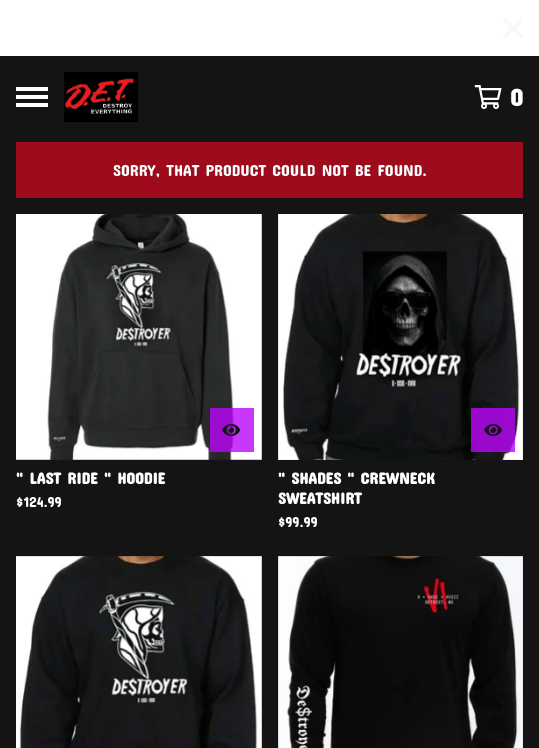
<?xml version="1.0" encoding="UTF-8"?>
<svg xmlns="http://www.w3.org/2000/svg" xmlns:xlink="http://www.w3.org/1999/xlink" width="539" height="748">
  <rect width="100%" height="100%" fill="#141415" />
  <rect width="539" height="56" fill="#ffffff" />
  <image x="503" y="19" width="20" height="19" xlink:href="image1.png" />
  <rect x="16" y="95" width="32" height="4" fill="#ffffff" />
  <rect x="16" y="87" width="32" height="4" fill="#ffffff" />
  <rect x="16" y="103" width="32" height="4" fill="#ffffff" />
  <image x="64" y="72" width="74" height="50" xlink:href="image2.png" />
  <image x="474" y="85" width="28" height="24" xlink:href="image3.png" />
  <rect x="16" y="142" width="507" height="56" fill="#9d0b1c" />
  <image x="16" y="214" width="246" height="246" xlink:href="image4.png" />
  <rect x="210" y="408" width="44" height="44" fill="#bc05fa" fill-opacity="0.8" />
  <image x="222" y="424" width="19" height="12" xlink:href="image5.png" />
  <image x="278" y="214" width="245" height="246" xlink:href="image6.png" />
  <rect x="471" y="408" width="44" height="44" fill="#bc05fa" fill-opacity="0.8" />
  <image x="484" y="424" width="19" height="12" xlink:href="image7.png" />
  <image x="16" y="556" width="246" height="192" xlink:href="image8.png" />
  <image x="278" y="556" width="245" height="192" xlink:href="image9.png" />
  <text x="510" y="106" style="font-family: Concert One; font-size: 24px; font-weight: bold; fill: #ffffff">0</text>
  <text x="113" y="176" style="font-family: Concert One; font-size: 16px; fill: #ffffff">SORRY, THAT PRODUCT COULD NOT BE FOUND.</text>
  <text x="16" y="484" style="font-family: Concert One; font-size: 16px; font-weight: bold; fill: #ffffff">" LAST RIDE " HOODIE</text>
  <text x="16" y="507" style="font-family: Concert One; font-size: 14.5px; fill: #ffffff">$124.99</text>
  <text x="278" y="484" style="font-family: Concert One; font-size: 16px; font-weight: bold; fill: #ffffff">" SHADES " CREWNECK</text>
  <text x="278" y="504" style="font-family: Concert One; font-size: 16px; font-weight: bold; fill: #ffffff">SWEATSHIRT</text>
  <text x="278" y="527" style="font-family: Concert One; font-size: 14.5px; fill: #ffffff">$99.99</text>
</svg>
